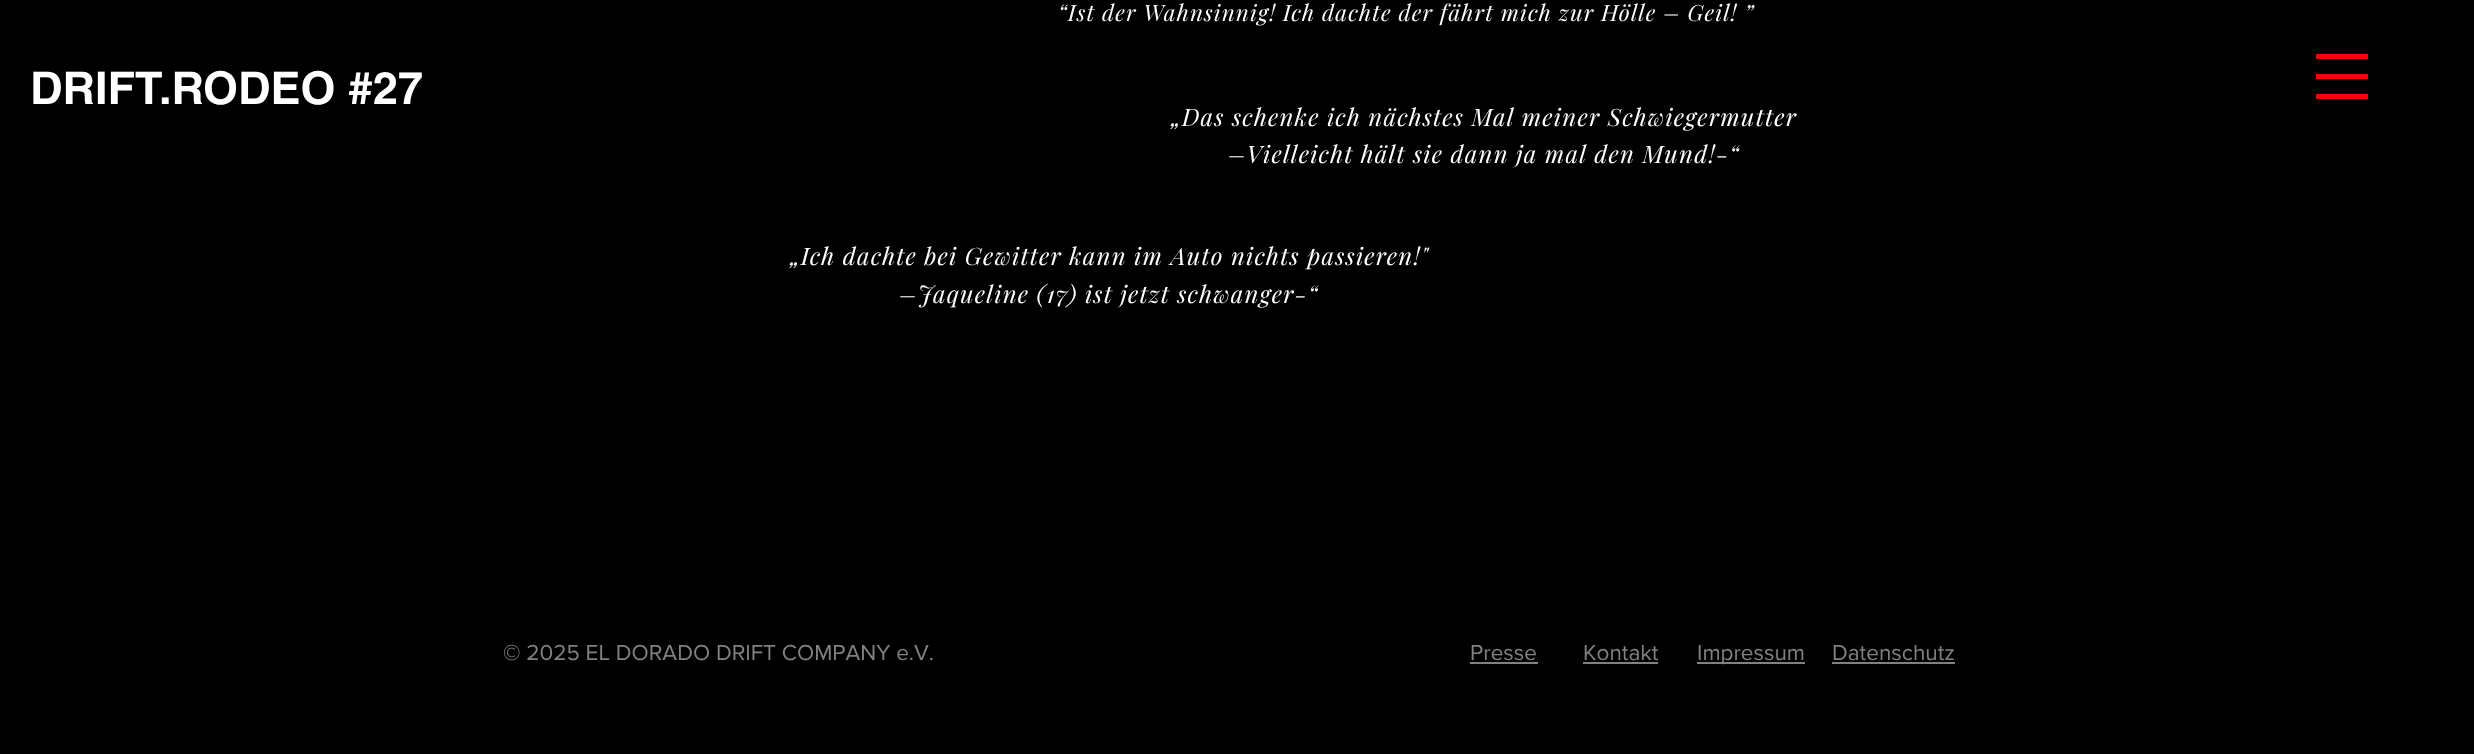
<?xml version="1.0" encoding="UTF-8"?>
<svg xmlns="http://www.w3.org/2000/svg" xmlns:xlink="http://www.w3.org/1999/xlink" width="2474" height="754">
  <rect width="100%" height="100%" fill="#000000" />
  <rect x="2316" y="54" width="52" height="5" fill="#fc0000" />
  <rect x="2316" y="74" width="52" height="5" fill="#fc0000" />
  <rect x="2316" y="94" width="52" height="5" fill="#fc0000" />
  <rect x="1470" y="662" width="68" height="2" fill="#818181" />
  <rect x="1583" y="662" width="75" height="2" fill="#818181" />
  <rect x="1697" y="662" width="108" height="2" fill="#818181" />
  <rect x="1832" y="662" width="123" height="2" fill="#818181" />
  <text x="30" y="104" style="font-family: helvetica; font-size: 45px; font-weight: bold; fill: #ffffff">DRIFT.RODEO #27</text>
  <text x="1058" y="21" style="font-family: Playfair Display; font-size: 22.5px; font-style: italic; letter-spacing: 1.12px; fill: #ffffff">“Ist der Wahnsinnig! Ich dachte der fährt mich zur Hölle – Geil! ”</text>
  <text x="1171" y="126" style="font-family: Playfair Display; font-size: 24px; font-style: italic; letter-spacing: 1.2px; fill: #ffffff">„Das schenke ich nächstes Mal meiner Schwiegermutter</text>
  <text x="1228" y="163" style="font-family: Playfair Display; font-size: 24px; font-style: italic; letter-spacing: 1.2px; fill: #ffffff">–Vielleicht hält sie dann ja mal den Mund!-“</text>
  <text x="790" y="265" style="font-family: Playfair Display; font-size: 24px; font-style: italic; letter-spacing: 1.2px; fill: #ffffff">„Ich dachte bei Gewitter kann im Auto nichts passieren!"</text>
  <text x="899" y="303" style="font-family: Playfair Display; font-size: 24px; font-style: italic; letter-spacing: 1.2px; fill: #ffffff">–Jaqueline (17) ist jetzt schwanger-“</text>
  <text x="503" y="660" style="font-family: 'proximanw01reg'; font-size: 22.5px; fill: #818181">© 2025 EL DORADO DRIFT COMPANY e.V.</text>
  <text x="1470" y="660" style="font-family: 'proximanw01reg'; font-size: 22.5px; fill: #818181">Presse</text>
  <text x="1583" y="660" style="font-family: 'proximanw01reg'; font-size: 22.5px; fill: #818181">Kontakt</text>
  <text x="1697" y="660" style="font-family: 'proximanw01reg'; font-size: 22.5px; fill: #818181">Impressum</text>
  <text x="1832" y="660" style="font-family: 'proximanw01reg'; font-size: 22.5px; fill: #818181">Datenschutz</text>
</svg>
